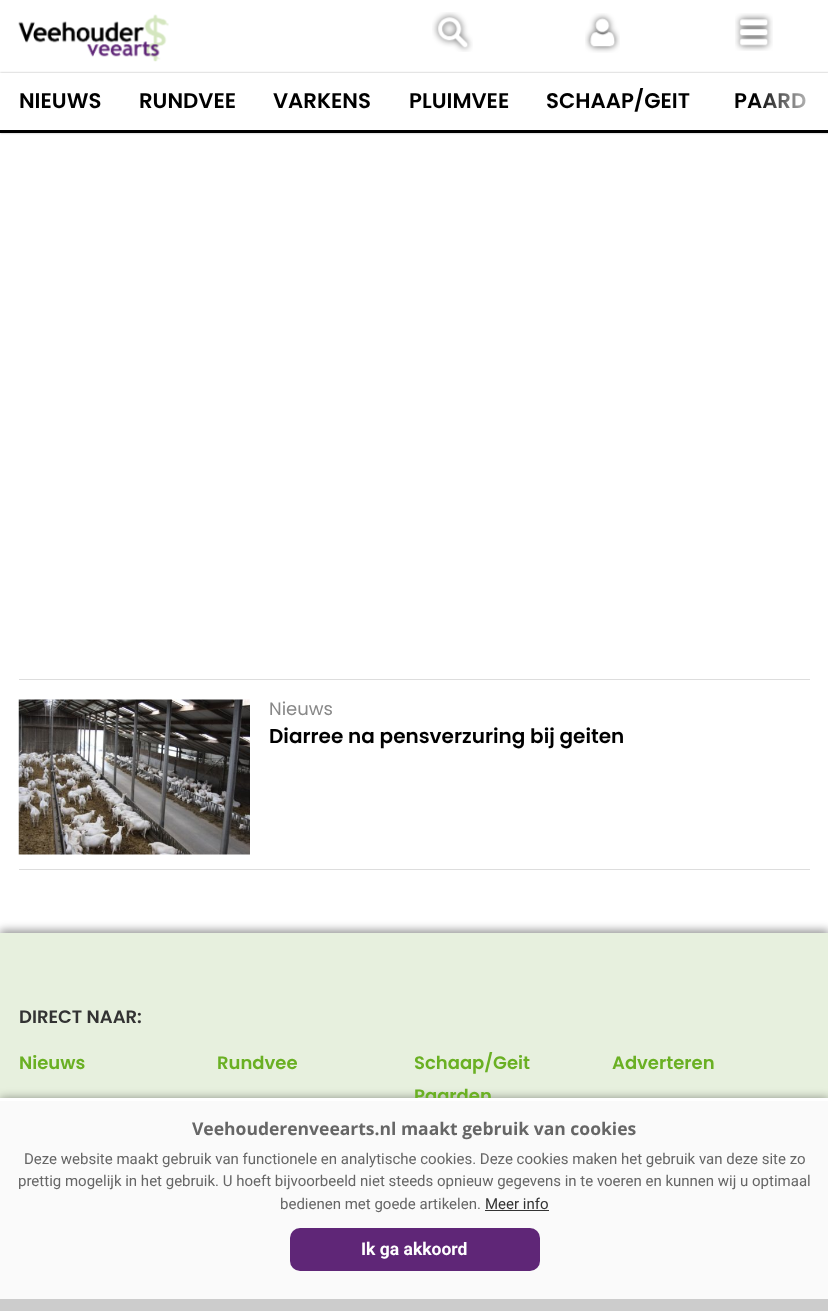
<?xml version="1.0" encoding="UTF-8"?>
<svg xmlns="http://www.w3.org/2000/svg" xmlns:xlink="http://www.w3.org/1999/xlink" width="828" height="1311">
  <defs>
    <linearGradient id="g1" gradientUnits="userSpaceOnUse" x1="754" y1="93" x2="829" y2="93"><stop offset="0" stop-color="#ffffff" stop-opacity="0" /><stop offset="1" stop-color="#ffffff" /></linearGradient>
  </defs>
  <rect width="100%" height="100%" fill="#ffffff" />
  <image x="18" y="14" width="151" height="48" xlink:href="image1.png" />
  <image x="432" y="12" width="41" height="40" xlink:href="image2.png" />
  <image x="585" y="13" width="35" height="40" xlink:href="image3.png" />
  <image x="735" y="13" width="38" height="38" xlink:href="image4.png" />
  <rect y="73" width="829" height="60" fill="#000000" fill-opacity="0.3" filter="blur(1px)" />
  <rect y="73" width="828" height="57" fill="#ffffff" />
  <rect y="130" width="828" height="3" fill="#000000" />
  <rect x="19" y="679" width="791" height="1" fill="#dddddd" />
  <image x="18" y="699" width="232" height="156" xlink:href="image5.png" />
  <rect x="19" y="869" width="791" height="1" fill="#dddddd" />
  <rect y="930" width="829" height="379" fill="#000000" fill-opacity="0.4" filter="blur(4px)" />
  <rect y="933" width="828" height="165" fill="#e7f0de" />
  <rect y="1098" width="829" height="213" fill="#000000" fill-opacity="0.4" filter="blur(5px)" />
  <rect y="1299" width="828" height="12" fill="#cccccc" />
  <text x="19" y="108" style="font-family: Poppins; font-size: 21.25px; font-weight: 600; fill: #000000">NIEUWS</text>
  <text x="139" y="108" style="font-family: Poppins; font-size: 21.25px; font-weight: 600; fill: #000000">RUNDVEE</text>
  <text x="273" y="108" style="font-family: Poppins; font-size: 21.25px; font-weight: 600; fill: #000000">VARKENS</text>
  <text x="409" y="108" style="font-family: Poppins; font-size: 21.25px; font-weight: 600; fill: #000000">PLUIMVEE</text>
  <text x="546" y="108" style="font-family: Poppins; font-size: 21.25px; font-weight: 600; fill: #000000">SCHAAP/GEIT</text>
  <text x="734" y="108" style="font-family: Poppins; font-size: 21.25px; font-weight: 600; fill: #000000">PAARD</text>
  <rect x="756" y="93" width="50" height="15" fill="url(#g1)" />
  <text x="269" y="715" style="font-family: Poppins; font-size: 18px; fill: #888888">Nieuws</text>
  <text x="269" y="743" style="font-family: Poppins; font-size: 20px; font-weight: 600; fill: #000000">Diarree na pensverzuring bij geiten</text>
  <text x="19" y="1023" style="font-family: Poppins; font-size: 18px; font-weight: 600; fill: #333333">DIRECT NAAR:</text>
  <text x="19" y="1069" style="font-family: Poppins; font-size: 18px; font-weight: 600; fill: #6ab023">Nieuws</text>
  <text x="217" y="1069" style="font-family: Poppins; font-size: 18px; font-weight: 600; fill: #6ab023">Rundvee</text>
  <text x="414" y="1069" style="font-family: Poppins; font-size: 18px; font-weight: 600; fill: #6ab023">Schaap/Geit</text>
  <text x="414" y="1102" style="font-family: Poppins; font-size: 18px; font-weight: 600; fill: #6ab023">Paarden</text>
  <text x="612" y="1069" style="font-family: Poppins; font-size: 18px; font-weight: 600; fill: #6ab023">Adverteren</text>
  <rect y="1101" width="828" height="198" fill="#fafafa" />
  <rect y="1098" width="828" height="3" fill="#ffffff" />
  <text x="192" y="1135" style="font-family: Open Sans; font-size: 17.5px; font-weight: bold; fill: #666666">Veehouderenveearts.nl maakt gebruik van cookies</text>
  <text x="24" y="1164" style="font-family: Roboto; font-size: 15px; fill: #666666">Deze website maakt gebruik van functionele en analytische cookies. Deze cookies maken het gebruik van deze site zo</text>
  <text x="18" y="1186" style="font-family: Roboto; font-size: 15px; fill: #666666">prettig mogelijk in het gebruik. U hoeft bijvoorbeeld niet steeds opnieuw gegevens in te voeren en kunnen wij u optimaal</text>
  <text x="280" y="1209" style="font-family: Roboto; font-size: 15px; fill: #666666">bedienen met goede artikelen.</text>
  <text x="485" y="1209" style="font-family: Roboto; font-size: 15px; fill: #333333">Meer info</text>
  <rect x="485" y="1210" width="64" height="1" fill="#333333" />
  <rect x="290" y="1228" width="250" height="43" rx="10" fill="#5f2677" />
  <text x="361" y="1255" style="font-family: Roboto; font-size: 17.5px; font-weight: bold; fill: #ffffff">Ik ga akkoord</text>
</svg>
